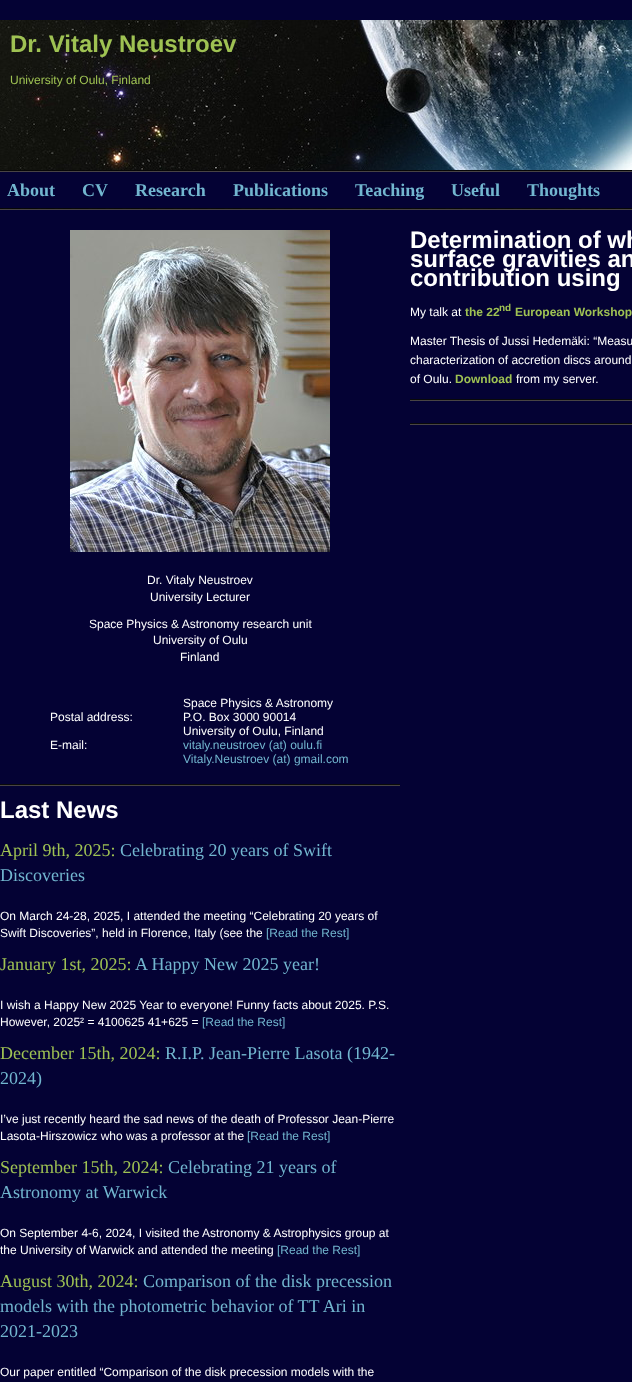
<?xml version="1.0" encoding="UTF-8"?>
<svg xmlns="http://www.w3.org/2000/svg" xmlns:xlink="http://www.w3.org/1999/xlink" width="632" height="1382">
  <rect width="100%" height="100%" fill="#040234" />
  <image x="0" y="20" width="632" height="150" xlink:href="image1.png" />
  <image x="0" y="170" width="632" height="40" xlink:href="image2.png" />
  <image x="410" y="399" width="222" height="26" xlink:href="image3.png" />
  <image x="0" y="784" width="400" height="2" xlink:href="image4.png" />
  <image x="70" y="230" width="260" height="322" xlink:href="image5.png" />
  <text x="10" y="52" style="font-family: Liberation Sans; font-size: 24px; font-weight: bold; fill: #9fc253">Dr. Vitaly Neustroev</text>
  <text x="10" y="84" style="font-family: Liberation Sans; font-size: 12px; fill: #9fc253">University of Oulu, Finland</text>
  <text x="7" y="196" style="font-family: Liberation Serif; font-size: 18px; font-weight: bold; fill: #72b6cf">About</text>
  <text x="82" y="196" style="font-family: Liberation Serif; font-size: 18px; font-weight: bold; fill: #72b6cf">CV</text>
  <text x="135" y="196" style="font-family: Liberation Serif; font-size: 18px; font-weight: bold; fill: #72b6cf">Research</text>
  <text x="233" y="196" style="font-family: Liberation Serif; font-size: 18px; font-weight: bold; fill: #72b6cf">Publications</text>
  <text x="355" y="196" style="font-family: Liberation Serif; font-size: 18px; font-weight: bold; fill: #72b6cf">Teaching</text>
  <text x="451" y="196" style="font-family: Liberation Serif; font-size: 18px; font-weight: bold; fill: #72b6cf">Useful</text>
  <text x="527" y="196" style="font-family: Liberation Serif; font-size: 18px; font-weight: bold; fill: #72b6cf">Thoughts</text>
  <text x="410" y="248" style="font-family: Liberation Sans; font-size: 24px; font-weight: bold; fill: #ffffff">Determination of wh</text>
  <text x="410" y="267" style="font-family: Liberation Sans; font-size: 24px; font-weight: bold; fill: #ffffff">surface gravities an</text>
  <text x="410" y="286" style="font-family: Liberation Sans; font-size: 24px; font-weight: bold; fill: #ffffff">contribution using</text>
  <text x="410" y="316" style="font-family: Liberation Sans; font-size: 12px; fill: #ffffff">My talk at</text>
  <text x="465" y="316" style="font-family: Liberation Sans; font-size: 12px; font-weight: bold; fill: #9fc253">the 22</text>
  <text x="499" y="311" style="font-family: Liberation Sans; font-size: 10px; font-weight: bold; fill: #9fc253">nd</text>
  <text x="515" y="316" style="font-family: Liberation Sans; font-size: 12px; font-weight: bold; fill: #9fc253">European Workshop</text>
  <text x="410" y="345" style="font-family: Liberation Sans; font-size: 12px; fill: #ffffff">Master Thesis of Jussi Hedemäki: “Measu</text>
  <text x="410" y="364" style="font-family: Liberation Sans; font-size: 12px; fill: #ffffff">characterization of accretion discs around</text>
  <text x="410" y="383" style="font-family: Liberation Sans; font-size: 12px; fill: #ffffff">of Oulu.</text>
  <text x="455" y="383" style="font-family: Liberation Sans; font-size: 12px; font-weight: bold; fill: #9fc253">Download</text>
  <text x="516" y="383" style="font-family: Liberation Sans; font-size: 12px; fill: #ffffff">from my server.</text>
  <text x="147" y="584" style="font-family: Liberation Sans; font-size: 12px; fill: #ffffff">Dr. Vitaly Neustroev</text>
  <text x="150" y="601" style="font-family: Liberation Sans; font-size: 12px; fill: #ffffff">University Lecturer</text>
  <text x="89" y="628" style="font-family: Liberation Sans; font-size: 12px; fill: #ffffff">Space Physics &amp; Astronomy research unit</text>
  <text x="153" y="644" style="font-family: Liberation Sans; font-size: 12px; fill: #ffffff">University of Oulu</text>
  <text x="180" y="661" style="font-family: Liberation Sans; font-size: 12px; fill: #ffffff">Finland</text>
  <text x="50" y="721" style="font-family: Liberation Sans; font-size: 12px; fill: #ffffff">Postal address:</text>
  <text x="183" y="707" style="font-family: Liberation Sans; font-size: 12px; fill: #ffffff">Space Physics &amp; Astronomy</text>
  <text x="183" y="721" style="font-family: Liberation Sans; font-size: 12px; fill: #ffffff">P.O. Box 3000 90014</text>
  <text x="183" y="735" style="font-family: Liberation Sans; font-size: 12px; fill: #ffffff">University of Oulu, Finland</text>
  <text x="50" y="749" style="font-family: Liberation Sans; font-size: 12px; fill: #ffffff">E-mail:</text>
  <text x="183" y="749" style="font-family: Liberation Sans; font-size: 12px; fill: #72b6cf">vitaly.neustroev (at) oulu.fi</text>
  <text x="183" y="763" style="font-family: Liberation Sans; font-size: 12px; fill: #72b6cf">Vitaly.Neustroev (at) gmail.com</text>
  <text x="0" y="818" style="font-family: Liberation Sans; font-size: 24px; font-weight: bold; fill: #ffffff">Last News</text>
  <text x="0" y="856" style="font-family: Liberation Serif; font-size: 18px; fill: #9fc253">April 9th, 2025:</text>
  <text x="120" y="856" style="font-family: Liberation Serif; font-size: 18px; fill: #72b6cf">Celebrating 20 years of Swift</text>
  <text x="0" y="881" style="font-family: Liberation Serif; font-size: 18px; fill: #72b6cf">Discoveries</text>
  <text x="0" y="920" style="font-family: Liberation Sans; font-size: 12px; fill: #ffffff">On March 24-28, 2025, I attended the meeting “Celebrating 20 years of</text>
  <text x="0" y="937" style="font-family: Liberation Sans; font-size: 12px; fill: #ffffff">Swift Discoveries”, held in Florence, Italy (see the</text>
  <text x="266" y="937" style="font-family: Liberation Sans; font-size: 12px; fill: #72b6cf">[Read the Rest]</text>
  <text x="0" y="970" style="font-family: Liberation Serif; font-size: 18px; fill: #9fc253">January 1st, 2025:</text>
  <text x="135" y="970" style="font-family: Liberation Serif; font-size: 18px; fill: #72b6cf">A Happy New 2025 year!</text>
  <text x="0" y="1009" style="font-family: Liberation Sans; font-size: 12px; fill: #ffffff">I wish a Happy New 2025 Year to everyone! Funny facts about 2025. P.S.</text>
  <text x="0" y="1026" style="font-family: Liberation Sans; font-size: 12px; fill: #ffffff">However, 2025² = 4100625 41+625 =</text>
  <text x="202" y="1026" style="font-family: Liberation Sans; font-size: 12px; fill: #72b6cf">[Read the Rest]</text>
  <text x="0" y="1059" style="font-family: Liberation Serif; font-size: 18px; fill: #9fc253">December 15th, 2024:</text>
  <text x="165" y="1059" style="font-family: Liberation Serif; font-size: 18px; fill: #72b6cf">R.I.P. Jean-Pierre Lasota (1942-</text>
  <text x="0" y="1084" style="font-family: Liberation Serif; font-size: 18px; fill: #72b6cf">2024)</text>
  <text x="0" y="1123" style="font-family: Liberation Sans; font-size: 12px; fill: #ffffff">I’ve just recently heard the sad news of the death of Professor Jean-Pierre</text>
  <text x="0" y="1140" style="font-family: Liberation Sans; font-size: 12px; fill: #ffffff">Lasota-Hirszowicz who was a professor at the</text>
  <text x="247" y="1140" style="font-family: Liberation Sans; font-size: 12px; fill: #72b6cf">[Read the Rest]</text>
  <text x="0" y="1173" style="font-family: Liberation Serif; font-size: 18px; fill: #9fc253">September 15th, 2024:</text>
  <text x="168" y="1173" style="font-family: Liberation Serif; font-size: 18px; fill: #72b6cf">Celebrating 21 years of</text>
  <text x="0" y="1198" style="font-family: Liberation Serif; font-size: 18px; fill: #72b6cf">Astronomy at Warwick</text>
  <text x="0" y="1237" style="font-family: Liberation Sans; font-size: 12px; fill: #ffffff">On September 4-6, 2024, I visited the Astronomy &amp; Astrophysics group at</text>
  <text x="0" y="1254" style="font-family: Liberation Sans; font-size: 12px; fill: #ffffff">the University of Warwick and attended the meeting</text>
  <text x="277" y="1254" style="font-family: Liberation Sans; font-size: 12px; fill: #72b6cf">[Read the Rest]</text>
  <text x="0" y="1287" style="font-family: Liberation Serif; font-size: 18px; fill: #9fc253">August 30th, 2024:</text>
  <text x="143" y="1287" style="font-family: Liberation Serif; font-size: 18px; fill: #72b6cf">Comparison of the disk precession</text>
  <text x="0" y="1312" style="font-family: Liberation Serif; font-size: 18px; fill: #72b6cf">models with the photometric behavior of TT Ari in</text>
  <text x="0" y="1337" style="font-family: Liberation Serif; font-size: 18px; fill: #72b6cf">2021-2023</text>
  <text x="0" y="1376" style="font-family: Liberation Sans; font-size: 12px; fill: #ffffff">Our paper entitled “Comparison of the disk precession models with the</text>
</svg>
